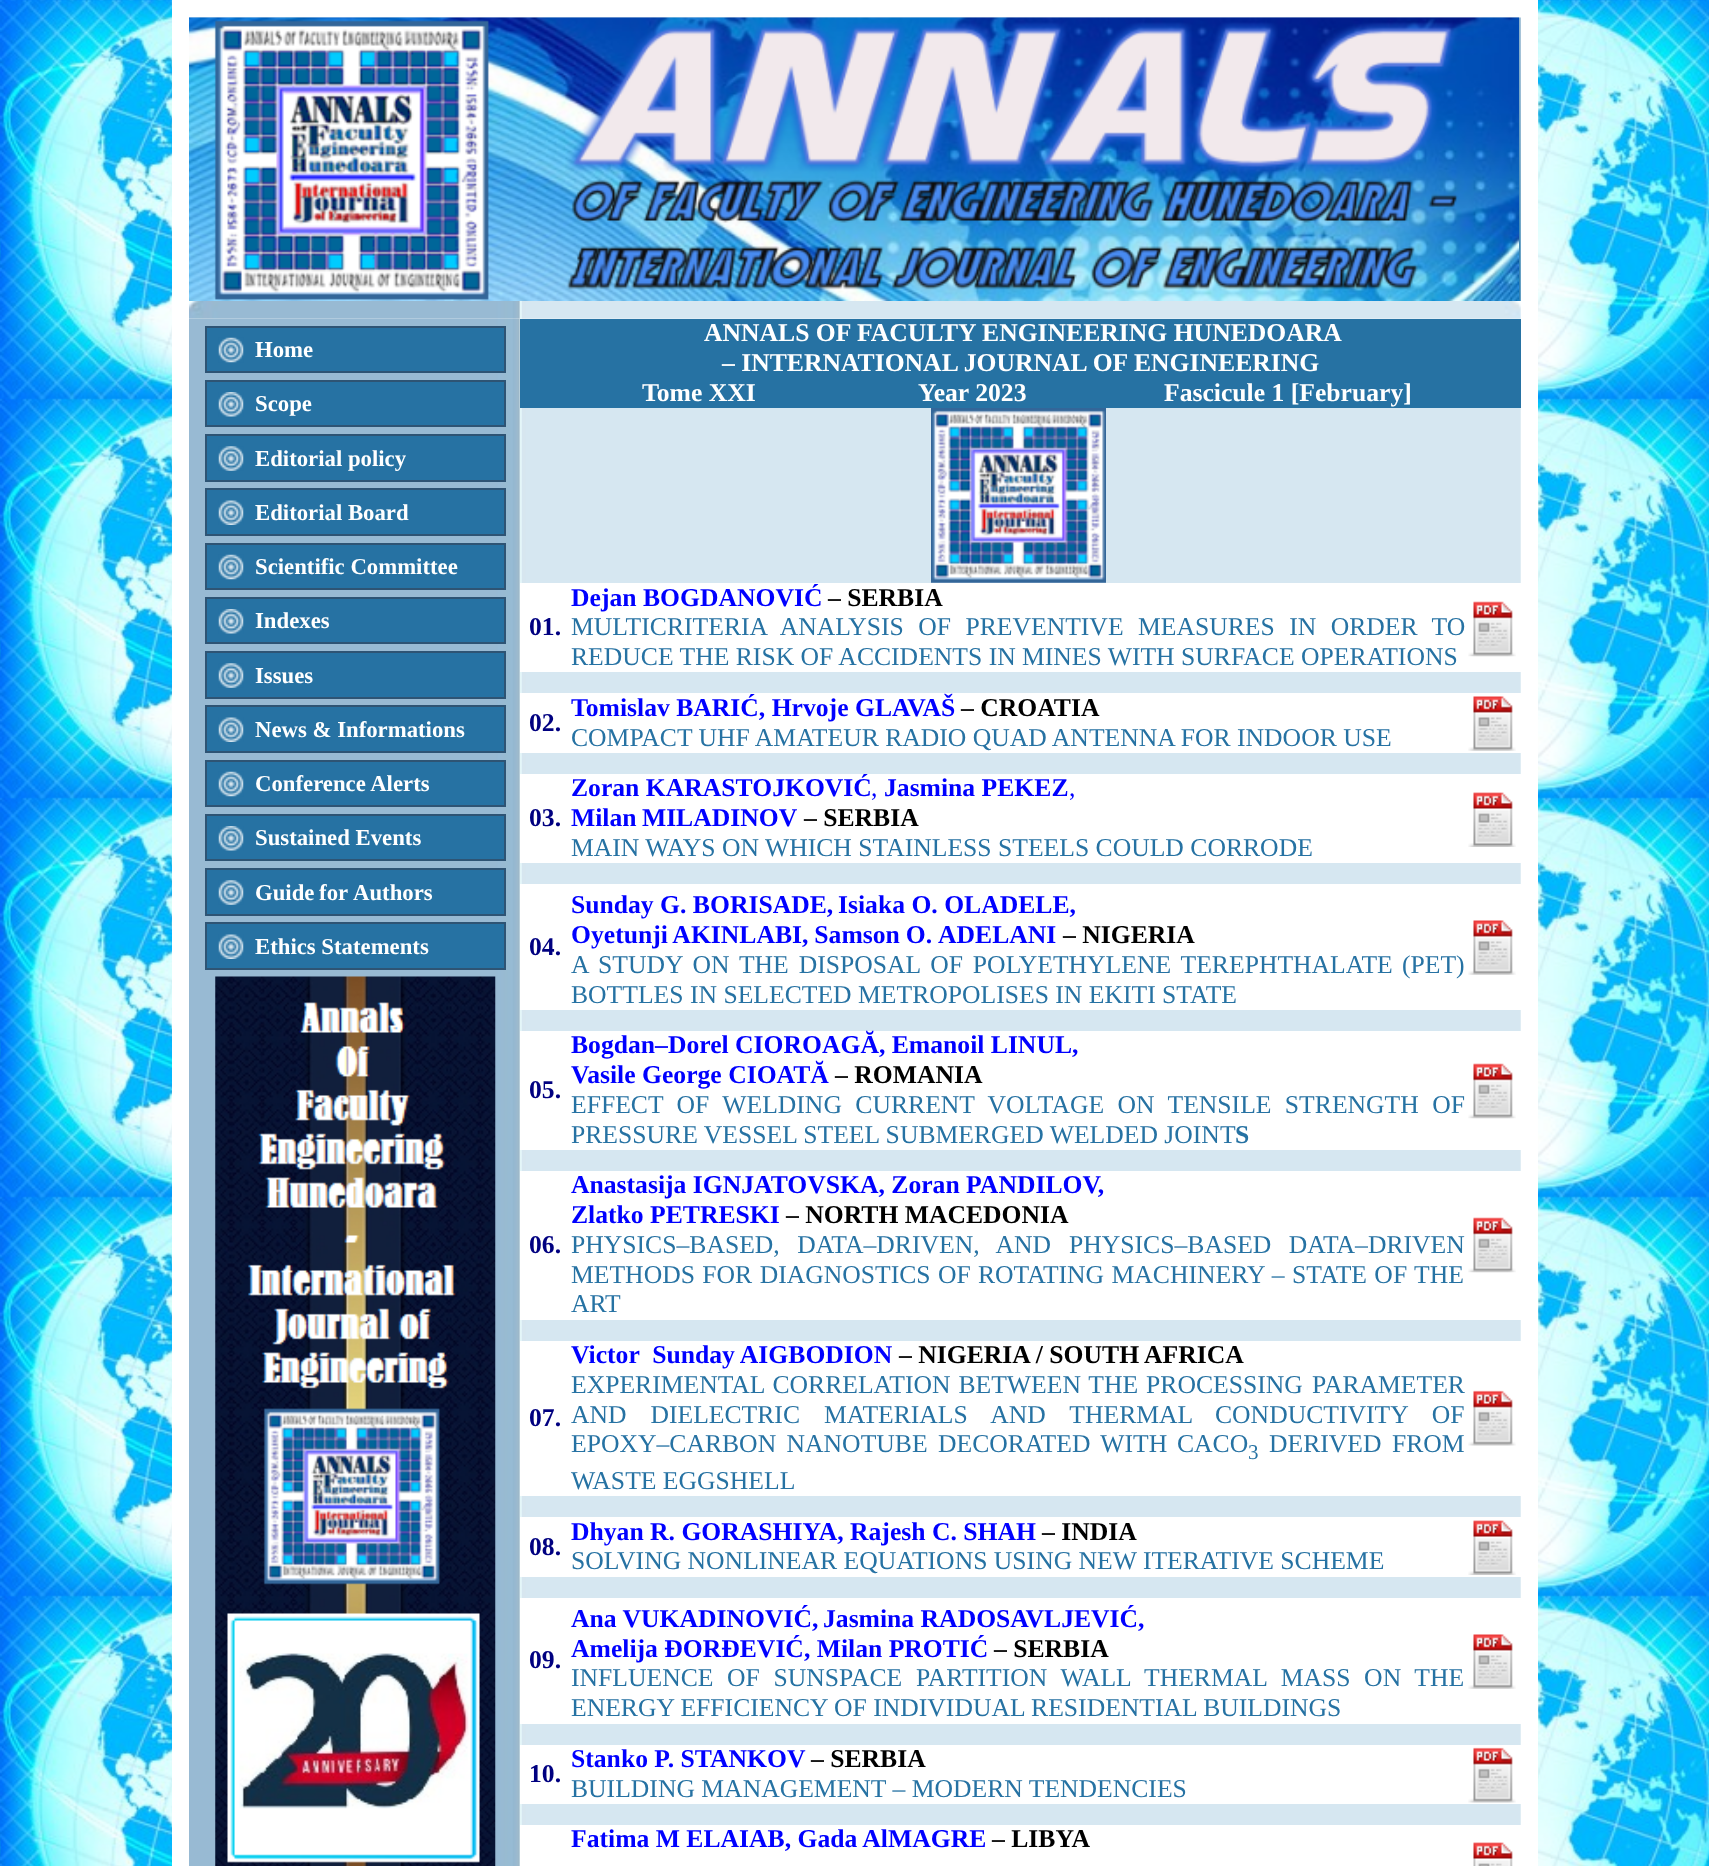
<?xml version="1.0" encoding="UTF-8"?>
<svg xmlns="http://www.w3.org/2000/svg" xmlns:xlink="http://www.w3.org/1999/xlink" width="1709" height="1866">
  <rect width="100%" height="100%" fill="#ffffff" />
  <image x="0" y="0" width="1709" height="1866" xlink:href="image1.png" />
  <rect x="172" width="1366" height="1866" fill="#ffffff" />
  <image x="189" y="17" width="1332" height="284" xlink:href="image2.png" />
  <image x="189" y="17" width="1330" height="284" xlink:href="image3.png" />
  <image x="189" y="318" width="1332" height="1548" xlink:href="image5.png" />
  <image x="189" y="301" width="1332" height="18" xlink:href="image4.png" />
  <rect x="207" y="328" width="297" height="43" fill="#2672a3" />
  <rect x="205" y="326" width="301" height="2" fill="#2e5474" />
  <rect x="504" y="326" width="2" height="47" fill="#2e5474" />
  <rect x="205" y="371" width="301" height="2" fill="#2e5474" />
  <rect x="205" y="326" width="2" height="47" fill="#2e5474" />
  <image x="218" y="337" width="26" height="26" xlink:href="image6.png" />
  <rect x="207" y="382" width="297" height="43" fill="#2672a3" />
  <rect x="205" y="380" width="301" height="2" fill="#2e5474" />
  <rect x="504" y="380" width="2" height="47" fill="#2e5474" />
  <rect x="205" y="425" width="301" height="2" fill="#2e5474" />
  <rect x="205" y="380" width="2" height="47" fill="#2e5474" />
  <image x="218" y="392" width="26" height="25" xlink:href="image7.png" />
  <rect x="207" y="436" width="297" height="44" fill="#2672a3" />
  <rect x="205" y="434" width="301" height="2" fill="#2e5474" />
  <rect x="504" y="434" width="2" height="47" fill="#2e5474" />
  <rect x="205" y="480" width="301" height="2" fill="#2e5474" />
  <rect x="205" y="434" width="2" height="47" fill="#2e5474" />
  <image x="218" y="446" width="26" height="25" xlink:href="image8.png" />
  <rect x="207" y="490" width="297" height="44" fill="#2672a3" />
  <rect x="205" y="488" width="301" height="2" fill="#2e5474" />
  <rect x="504" y="488" width="2" height="48" fill="#2e5474" />
  <rect x="205" y="534" width="301" height="2" fill="#2e5474" />
  <rect x="205" y="488" width="2" height="48" fill="#2e5474" />
  <image x="218" y="500" width="26" height="25" xlink:href="image9.png" />
  <rect x="207" y="545" width="297" height="43" fill="#2672a3" />
  <rect x="205" y="543" width="301" height="2" fill="#2e5474" />
  <rect x="504" y="543" width="2" height="47" fill="#2e5474" />
  <rect x="205" y="588" width="301" height="2" fill="#2e5474" />
  <rect x="205" y="543" width="2" height="47" fill="#2e5474" />
  <image x="218" y="554" width="26" height="26" xlink:href="image6.png" />
  <rect x="207" y="599" width="297" height="43" fill="#2672a3" />
  <rect x="205" y="597" width="301" height="2" fill="#2e5474" />
  <rect x="504" y="597" width="2" height="47" fill="#2e5474" />
  <rect x="205" y="642" width="301" height="2" fill="#2e5474" />
  <rect x="205" y="597" width="2" height="47" fill="#2e5474" />
  <image x="218" y="609" width="26" height="25" xlink:href="image7.png" />
  <rect x="207" y="653" width="297" height="44" fill="#2672a3" />
  <rect x="205" y="651" width="301" height="2" fill="#2e5474" />
  <rect x="504" y="651" width="2" height="47" fill="#2e5474" />
  <rect x="205" y="697" width="301" height="2" fill="#2e5474" />
  <rect x="205" y="651" width="2" height="47" fill="#2e5474" />
  <image x="218" y="663" width="26" height="25" xlink:href="image8.png" />
  <rect x="207" y="707" width="297" height="44" fill="#2672a3" />
  <rect x="205" y="705" width="301" height="2" fill="#2e5474" />
  <rect x="504" y="705" width="2" height="48" fill="#2e5474" />
  <rect x="205" y="751" width="301" height="2" fill="#2e5474" />
  <rect x="205" y="705" width="2" height="48" fill="#2e5474" />
  <image x="218" y="717" width="26" height="25" xlink:href="image9.png" />
  <rect x="207" y="762" width="297" height="43" fill="#2672a3" />
  <rect x="205" y="760" width="301" height="2" fill="#2e5474" />
  <rect x="504" y="760" width="2" height="47" fill="#2e5474" />
  <rect x="205" y="805" width="301" height="2" fill="#2e5474" />
  <rect x="205" y="760" width="2" height="47" fill="#2e5474" />
  <image x="218" y="771" width="26" height="26" xlink:href="image6.png" />
  <rect x="207" y="816" width="297" height="43" fill="#2672a3" />
  <rect x="205" y="814" width="301" height="2" fill="#2e5474" />
  <rect x="504" y="814" width="2" height="47" fill="#2e5474" />
  <rect x="205" y="859" width="301" height="2" fill="#2e5474" />
  <rect x="205" y="814" width="2" height="47" fill="#2e5474" />
  <image x="218" y="826" width="26" height="25" xlink:href="image7.png" />
  <rect x="207" y="870" width="297" height="44" fill="#2672a3" />
  <rect x="205" y="868" width="301" height="2" fill="#2e5474" />
  <rect x="504" y="868" width="2" height="47" fill="#2e5474" />
  <rect x="205" y="914" width="301" height="2" fill="#2e5474" />
  <rect x="205" y="868" width="2" height="47" fill="#2e5474" />
  <image x="218" y="880" width="26" height="25" xlink:href="image8.png" />
  <rect x="207" y="924" width="297" height="44" fill="#2672a3" />
  <rect x="205" y="922" width="301" height="2" fill="#2e5474" />
  <rect x="504" y="922" width="2" height="48" fill="#2e5474" />
  <rect x="205" y="968" width="301" height="2" fill="#2e5474" />
  <rect x="205" y="922" width="2" height="48" fill="#2e5474" />
  <image x="218" y="934" width="26" height="25" xlink:href="image9.png" />
  <image x="215" y="976" width="281" height="890" xlink:href="image10.png" />
  <rect x="520" y="319" width="1001" height="59" fill="#2672a3" />
  <rect x="520" y="378" width="1001" height="30" fill="#2672a3" />
  <image x="931" y="408" width="175" height="175" xlink:href="image11.png" />
  <rect x="520" y="583" width="1001" height="89" fill="#ffffff" />
  <image x="1468" y="601" width="48" height="56" xlink:href="image12.png" />
  <rect x="520" y="693" width="1001" height="60" fill="#ffffff" />
  <image x="1468" y="696" width="48" height="55" xlink:href="image13.png" />
  <rect x="520" y="774" width="1001" height="89" fill="#ffffff" />
  <image x="1468" y="792" width="48" height="55" xlink:href="image14.png" />
  <rect x="520" y="884" width="1001" height="126" fill="#ffffff" />
  <image x="1468" y="920" width="48" height="55" xlink:href="image13.png" />
  <rect x="520" y="1031" width="1001" height="119" fill="#ffffff" />
  <image x="1468" y="1063" width="48" height="56" xlink:href="image12.png" />
  <rect x="520" y="1171" width="1001" height="149" fill="#ffffff" />
  <image x="1468" y="1217" width="48" height="56" xlink:href="image12.png" />
  <rect x="520" y="1341" width="1001" height="155" fill="#ffffff" />
  <image x="1468" y="1390" width="48" height="56" xlink:href="image15.png" />
  <rect x="520" y="1517" width="1001" height="60" fill="#ffffff" />
  <image x="1468" y="1520" width="48" height="55" xlink:href="image14.png" />
  <rect x="520" y="1598" width="1001" height="126" fill="#ffffff" />
  <image x="1468" y="1634" width="48" height="55" xlink:href="image13.png" />
  <rect x="520" y="1745" width="1001" height="59" fill="#ffffff" />
  <image x="1468" y="1747" width="48" height="56" xlink:href="image15.png" />
  <rect x="520" y="1825" width="1001" height="41" fill="#ffffff" />
  <image x="1473" y="1842" width="40" height="24" xlink:href="image16.png" />
  <text x="255" y="357" style="font-family: Liberation Serif; font-size: 22.75px; font-weight: bold; fill: #ffffff">Home</text>
  <text x="255" y="411" style="font-family: Liberation Serif; font-size: 22.75px; font-weight: bold; fill: #ffffff">Scope</text>
  <text x="255" y="466" style="font-family: Liberation Serif; font-size: 22.75px; font-weight: bold; fill: #ffffff">Editorial policy</text>
  <text x="255" y="520" style="font-family: Liberation Serif; font-size: 22.75px; font-weight: bold; fill: #ffffff">Editorial Board</text>
  <text x="255" y="574" style="font-family: Liberation Serif; font-size: 22.75px; font-weight: bold; fill: #ffffff">Scientific Committee</text>
  <text x="255" y="628" style="font-family: Liberation Serif; font-size: 22.75px; font-weight: bold; fill: #ffffff">Indexes</text>
  <text x="255" y="683" style="font-family: Liberation Serif; font-size: 22.75px; font-weight: bold; fill: #ffffff">Issues</text>
  <text x="255" y="737" style="font-family: Liberation Serif; font-size: 22.75px; font-weight: bold; fill: #ffffff">News &amp; Informations</text>
  <text x="255" y="791" style="font-family: Liberation Serif; font-size: 22.75px; font-weight: bold; fill: #ffffff">Conference Alerts</text>
  <text x="255" y="845" style="font-family: Liberation Serif; font-size: 22.75px; font-weight: bold; fill: #ffffff">Sustained Events</text>
  <text x="255" y="900" word-spacing="-1" style="font-family: Liberation Serif; font-size: 22.75px; font-weight: bold; fill: #ffffff">Guide for</text>
  <text x="353" y="900" style="font-family: Liberation Serif; font-size: 22.75px; font-weight: bold; fill: #ffffff">Authors</text>
  <text x="255" y="954" style="font-family: Liberation Serif; font-size: 22.75px; font-weight: bold; fill: #ffffff">Ethics Statements</text>
  <text x="704" y="341" style="font-family: Liberation Serif; font-size: 25.65px; font-weight: bold; fill: #ffffff">ANNALS OF FACULTY ENGINEERING HUNEDOARA</text>
  <text x="722" y="371" style="font-family: Liberation Serif; font-size: 25.65px; font-weight: bold; fill: #ffffff">– INTERNATIONAL JOURNAL OF</text>
  <text x="1134" y="371" style="font-family: Liberation Serif; font-size: 25.65px; font-weight: bold; fill: #ffffff">ENGINEERING</text>
  <text x="642" y="401" style="font-family: Liberation Serif; font-size: 25.65px; font-weight: bold; fill: #ffffff">Tome XXI</text>
  <text x="918" y="401" style="font-family: Liberation Serif; font-size: 25.65px; font-weight: bold; fill: #ffffff">Year 2023</text>
  <text x="1164" y="401" style="font-family: Liberation Serif; font-size: 25.65px; font-weight: bold; fill: #ffffff">Fascicule 1 [February]</text>
  <text x="529" y="635" style="font-family: Liberation Serif; font-size: 25.65px; font-weight: bold; fill: #000080">01.</text>
  <text x="571" y="606" style="font-family: Liberation Serif; font-size: 25.65px; font-weight: bold; fill: #0000ff">Dejan BOGDANOVIĆ</text>
  <text x="828" y="606" style="font-family: Liberation Serif; font-size: 25.65px; font-weight: bold; fill: #000000">– SERBIA</text>
  <text x="571" y="635" word-spacing="8" style="font-family: Liberation Serif; font-size: 25.65px; fill: #2672a3">MULTICRITERIA ANALYSIS OF PREVENTIVE</text>
  <text x="1138" y="635" word-spacing="8" style="font-family: Liberation Serif; font-size: 25.65px; fill: #2672a3">MEASURES IN ORDER TO</text>
  <text x="571" y="665" style="font-family: Liberation Serif; font-size: 25.65px; fill: #2672a3">REDUCE THE RISK OF ACCIDENTS IN</text>
  <text x="1022" y="665" style="font-family: Liberation Serif; font-size: 25.65px; fill: #2672a3">MINES WITH SURFACE OPERATIONS</text>
  <text x="529" y="731" style="font-family: Liberation Serif; font-size: 25.65px; font-weight: bold; fill: #000080">02.</text>
  <text x="571" y="716" style="font-family: Liberation Serif; font-size: 25.65px; font-weight: bold; fill: #0000ff">Tomislav BARIĆ, Hrvoje GLAVAŠ</text>
  <text x="961" y="716" style="font-family: Liberation Serif; font-size: 25.65px; font-weight: bold; fill: #000000">– CROATIA</text>
  <text x="571" y="746" style="font-family: Liberation Serif; font-size: 25.65px; fill: #2672a3">COMPACT UHF AMATEUR RADIO QUAD ANTENNA FOR INDOOR USE</text>
  <text x="529" y="826" style="font-family: Liberation Serif; font-size: 25.65px; font-weight: bold; fill: #000080">03.</text>
  <text x="571" y="796" style="font-family: Liberation Serif; font-size: 25.65px; font-weight: bold; fill: #0000ff">Zoran KARASTOJKOVIĆ</text>
  <text x="871" y="796" style="font-family: Liberation Serif; font-size: 25.65px; fill: #0000ff">,</text>
  <text x="884" y="796" style="font-family: Liberation Serif; font-size: 25.65px; font-weight: bold; fill: #0000ff">Jasmina PEKEZ</text>
  <text x="1069" y="796" style="font-family: Liberation Serif; font-size: 25.65px; fill: #0000ff">,</text>
  <text x="571" y="826" word-spacing="-1" style="font-family: Liberation Serif; font-size: 25.65px; font-weight: bold; fill: #0000ff">Milan MILADINOV</text>
  <text x="804" y="826" style="font-family: Liberation Serif; font-size: 25.65px; font-weight: bold; fill: #000000">– SERBIA</text>
  <text x="571" y="856" style="font-family: Liberation Serif; font-size: 25.65px; fill: #2672a3">MAIN WAYS ON WHICH STAINLESS STEELS COULD CORRODE</text>
  <text x="529" y="955" style="font-family: Liberation Serif; font-size: 25.65px; font-weight: bold; fill: #000080">04.</text>
  <text x="571" y="913" style="font-family: Liberation Serif; font-size: 25.65px; font-weight: bold; fill: #0000ff">Sunday G. BORISADE,</text>
  <text x="838" y="913" style="font-family: Liberation Serif; font-size: 25.65px; font-weight: bold; fill: #0000ff">Isiaka O. OLADELE,</text>
  <text x="571" y="943" word-spacing="-0.5" style="font-family: Liberation Serif; font-size: 25.65px; font-weight: bold; fill: #0000ff">Oyetunji AKINLABI, Samson O.</text>
  <text x="938" y="943" style="font-family: Liberation Serif; font-size: 25.65px; font-weight: bold; fill: #0000ff">ADELANI</text>
  <text x="1063" y="943" style="font-family: Liberation Serif; font-size: 25.65px; font-weight: bold; fill: #000000">– NIGERIA</text>
  <text x="571" y="973" word-spacing="3.5" style="font-family: Liberation Serif; font-size: 25.65px; fill: #2672a3">A STUDY ON THE DISPOSAL OF POLYETHYLENE TEREPHTHALATE</text>
  <text x="1402" y="973" style="font-family: Liberation Serif; font-size: 25.65px; fill: #2672a3">(PET)</text>
  <text x="571" y="1003" style="font-family: Liberation Serif; font-size: 25.65px; fill: #2672a3">BOTTLES IN SELECTED METROPOLISES IN EKITI STATE</text>
  <text x="529" y="1098" style="font-family: Liberation Serif; font-size: 25.65px; font-weight: bold; fill: #000080">05.</text>
  <text x="571" y="1053" style="font-family: Liberation Serif; font-size: 25.65px; font-weight: bold; fill: #0000ff">Bogdan–Dorel CIOROAGĂ, Emanoil LINUL,</text>
  <text x="571" y="1083" style="font-family: Liberation Serif; font-size: 25.65px; font-weight: bold; fill: #0000ff">Vasile George CIOATĂ</text>
  <text x="835" y="1083" style="font-family: Liberation Serif; font-size: 25.65px; font-weight: bold; fill: #000000">– ROMANIA</text>
  <text x="571" y="1113" word-spacing="7" style="font-family: Liberation Serif; font-size: 25.65px; fill: #2672a3">EFFECT OF WELDING CURRENT VOLTAGE ON TENSILE STRENGTH OF</text>
  <text x="571" y="1143" style="font-family: Liberation Serif; font-size: 25.65px; fill: #2672a3">PRESSURE VESSEL STEEL SUBMERGED WELDED JOINT</text>
  <text x="1235" y="1143" style="font-family: Liberation Serif; font-size: 25.65px; font-weight: bold; fill: #2672a3">S</text>
  <text x="529" y="1253" style="font-family: Liberation Serif; font-size: 25.65px; font-weight: bold; fill: #000080">06.</text>
  <text x="571" y="1193" style="font-family: Liberation Serif; font-size: 25.65px; font-weight: bold; fill: #0000ff">Anastasija IGNJATOVSKA, Zoran PANDILOV,</text>
  <text x="571" y="1223" style="font-family: Liberation Serif; font-size: 25.65px; font-weight: bold; fill: #0000ff">Zlatko PETRESKI</text>
  <text x="786" y="1223" style="font-family: Liberation Serif; font-size: 25.65px; font-weight: bold; fill: #000000">– NORTH MACEDONIA</text>
  <text x="571" y="1253" word-spacing="11" style="font-family: Liberation Serif; font-size: 25.65px; fill: #2672a3">PHYSICS–BASED, DATA–DRIVEN, AND</text>
  <text x="1069" y="1253" word-spacing="11" style="font-family: Liberation Serif; font-size: 25.65px; fill: #2672a3">PHYSICS–BASED DATA–DRIVEN</text>
  <text x="571" y="1283" word-spacing="1" style="font-family: Liberation Serif; font-size: 25.65px; fill: #2672a3">METHODS FOR DIAGNOSTICS OF</text>
  <text x="978" y="1283" word-spacing="1" style="font-family: Liberation Serif; font-size: 25.65px; fill: #2672a3">ROTATING MACHINERY – STATE OF THE</text>
  <text x="571" y="1312" style="font-family: Liberation Serif; font-size: 25.65px; fill: #2672a3">ART</text>
  <text x="529" y="1426" style="font-family: Liberation Serif; font-size: 25.65px; font-weight: bold; fill: #000080">07.</text>
  <text x="571" y="1363" style="font-family: Liberation Serif; font-size: 25.65px; font-weight: bold; fill: #0000ff" xml:space="preserve">Victor  Sunday AIGBODION</text>
  <text x="899" y="1363" style="font-family: Liberation Serif; font-size: 25.65px; font-weight: bold; fill: #000000">– NIGERIA / SOUTH AFRICA</text>
  <text x="571" y="1393" word-spacing="1.5" style="font-family: Liberation Serif; font-size: 25.65px; fill: #2672a3">EXPERIMENTAL CORRELATION BETWEEN THE PROCESSING</text>
  <text x="1312" y="1393" style="font-family: Liberation Serif; font-size: 25.65px; fill: #2672a3">PARAMETER</text>
  <text x="571" y="1423" word-spacing="17.5" style="font-family: Liberation Serif; font-size: 25.65px; fill: #2672a3">AND DIELECTRIC MATERIALS AND THERMAL</text>
  <text x="1215" y="1423" word-spacing="17.5" style="font-family: Liberation Serif; font-size: 25.65px; fill: #2672a3">CONDUCTIVITY OF</text>
  <text x="571" y="1452" word-spacing="4" style="font-family: Liberation Serif; font-size: 25.65px; fill: #2672a3">EPOXY–CARBON NANOTUBE DECORATED WITH</text>
  <text x="1177" y="1452" style="font-family: Liberation Serif; font-size: 25.65px; fill: #2672a3">CACO</text>
  <text x="1248" y="1459" style="font-family: Liberation Serif; font-size: 21px; fill: #2672a3">3</text>
  <text x="1269" y="1452" word-spacing="4" style="font-family: Liberation Serif; font-size: 25.65px; fill: #2672a3">DERIVED FROM</text>
  <text x="571" y="1489" style="font-family: Liberation Serif; font-size: 25.65px; fill: #2672a3">WASTE EGGSHELL</text>
  <text x="529" y="1555" style="font-family: Liberation Serif; font-size: 25.65px; font-weight: bold; fill: #000080">08.</text>
  <text x="571" y="1540" style="font-family: Liberation Serif; font-size: 25.65px; font-weight: bold; fill: #0000ff">Dhyan R. GORASHIYA, Rajesh C. SHAH</text>
  <text x="1042" y="1540" style="font-family: Liberation Serif; font-size: 25.65px; font-weight: bold; fill: #000000">– INDIA</text>
  <text x="571" y="1569" style="font-family: Liberation Serif; font-size: 25.65px; fill: #2672a3">SOLVING NONLINEAR EQUATIONS USING NEW ITERATIVE SCHEME</text>
  <text x="529" y="1668" style="font-family: Liberation Serif; font-size: 25.65px; font-weight: bold; fill: #000080">09.</text>
  <text x="571" y="1627" style="font-family: Liberation Serif; font-size: 25.65px; font-weight: bold; fill: #0000ff">Ana VUKADINOVIĆ,</text>
  <text x="823" y="1627" style="font-family: Liberation Serif; font-size: 25.65px; font-weight: bold; fill: #0000ff">Jasmina RADOSAVLJEVIĆ,</text>
  <text x="571" y="1657" style="font-family: Liberation Serif; font-size: 25.65px; font-weight: bold; fill: #0000ff">Amelija ĐORĐEVIĆ, Milan PROTIĆ</text>
  <text x="994" y="1657" style="font-family: Liberation Serif; font-size: 25.65px; font-weight: bold; fill: #000000">– SERBIA</text>
  <text x="571" y="1686" word-spacing="7.25" style="font-family: Liberation Serif; font-size: 25.65px; fill: #2672a3">INFLUENCE OF SUNSPACE PARTITION WALL THERMAL MASS ON THE</text>
  <text x="571" y="1716" style="font-family: Liberation Serif; font-size: 25.65px; fill: #2672a3">ENERGY EFFICIENCY OF INDIVIDUAL RESIDENTIAL BUILDINGS</text>
  <text x="529" y="1782" style="font-family: Liberation Serif; font-size: 25.65px; font-weight: bold; fill: #000080">10.</text>
  <text x="571" y="1767" style="font-family: Liberation Serif; font-size: 25.65px; font-weight: bold; fill: #0000ff">Stanko P. STANKOV</text>
  <text x="811" y="1767" style="font-family: Liberation Serif; font-size: 25.65px; font-weight: bold; fill: #000000">– SERBIA</text>
  <text x="571" y="1797" style="font-family: Liberation Serif; font-size: 25.65px; fill: #2672a3">BUILDING MANAGEMENT – MODERN TENDENCIES</text>
  <text x="571" y="1847" style="font-family: Liberation Serif; font-size: 25.65px; font-weight: bold; fill: #0000ff">Fatima M ELAIAB, Gada AlMAGRE</text>
  <text x="992" y="1847" style="font-family: Liberation Serif; font-size: 25.65px; font-weight: bold; fill: #000000">– LIBYA</text>
</svg>
